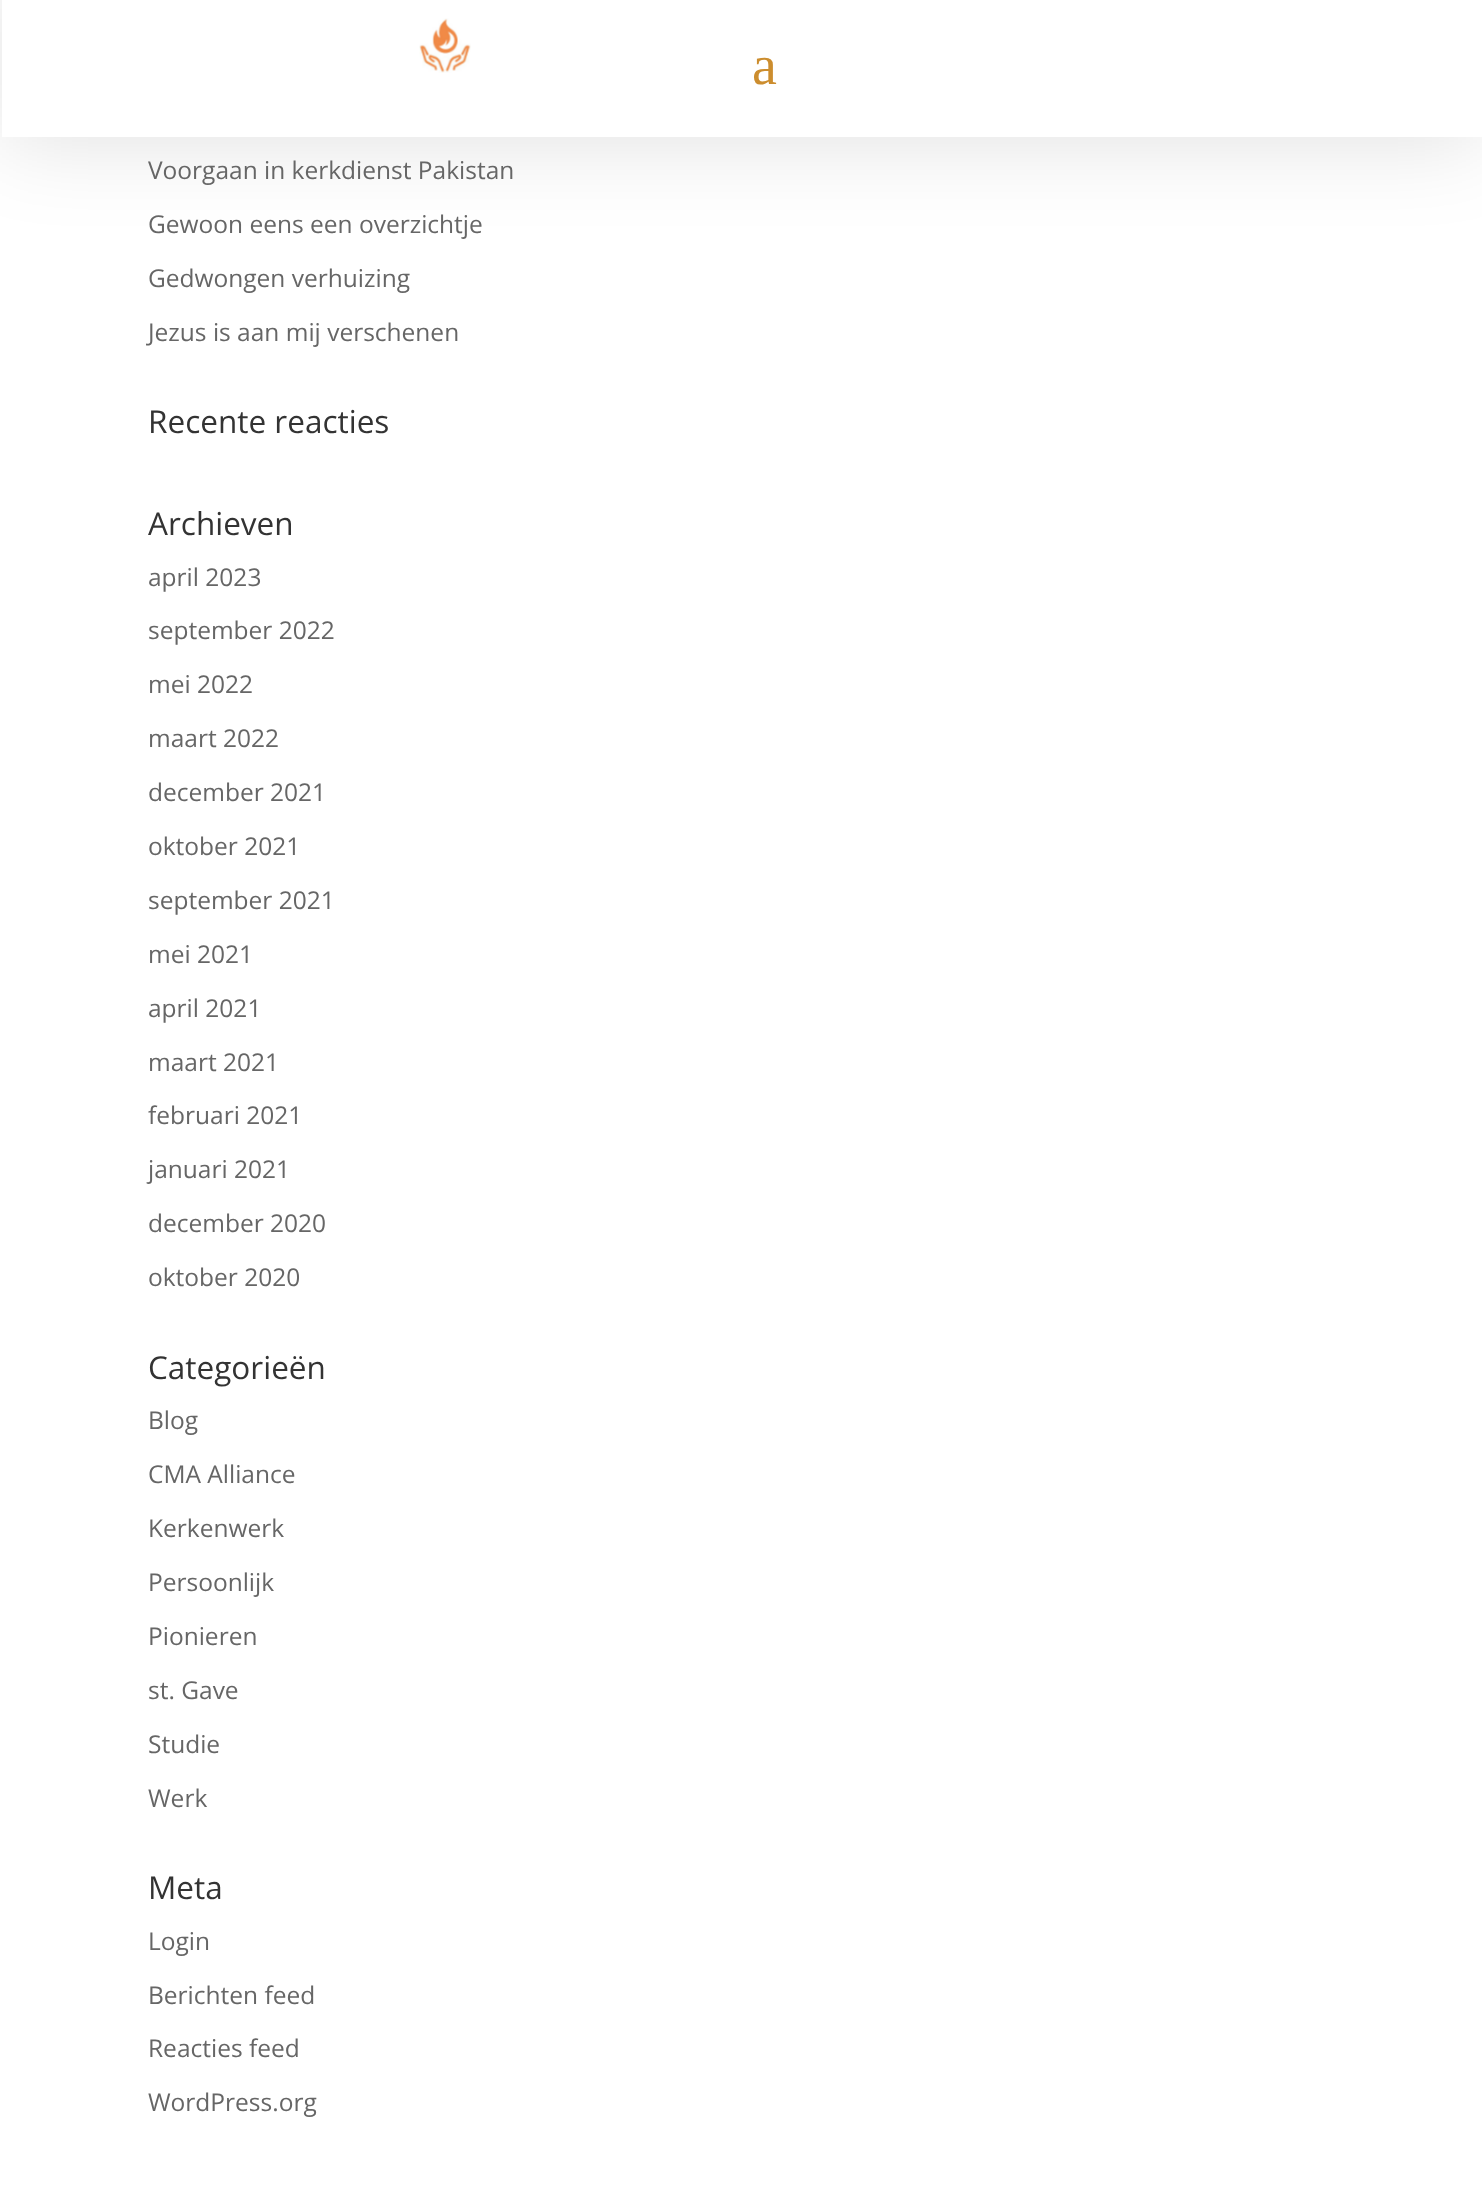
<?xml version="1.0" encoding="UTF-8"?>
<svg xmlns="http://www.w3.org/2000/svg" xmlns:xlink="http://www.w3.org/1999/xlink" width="1482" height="2210">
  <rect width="100%" height="100%" fill="#ffffff" />
  <rect x="2" y="-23" width="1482" height="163" fill="#000000" fill-opacity="0.12" filter="blur(44px)" />
  <rect x="2" width="1480" height="137" fill="#ffffff" />
  <image x="419" y="18" width="52" height="55" xlink:href="image1.png" />
  <text x="752" y="84" style="font-family: Liberation Serif; font-size: 56px; fill: #cc8d2e">a</text>
  <text x="148" y="179" style="font-family: Open Sans; font-size: 24.5px; fill: #666666">Voorgaan in kerkdienst Pakistan</text>
  <text x="148" y="233" style="font-family: Open Sans; font-size: 24.5px; fill: #666666">Gewoon eens een overzichtje</text>
  <text x="148" y="287" style="font-family: Open Sans; font-size: 24.5px; fill: #666666">Gedwongen verhuizing</text>
  <text x="148" y="341" style="font-family: Open Sans; font-size: 24.5px; fill: #666666">Jezus is aan mij verschenen</text>
  <text x="148" y="433" style="font-family: Open Sans; font-size: 31.5px; fill: #333333">Recente reacties</text>
  <text x="148" y="535" style="font-family: Open Sans; font-size: 31.5px; fill: #333333">Archieven</text>
  <text x="148" y="586" style="font-family: Open Sans; font-size: 24.5px; fill: #666666">april 2023</text>
  <text x="148" y="639" style="font-family: Open Sans; font-size: 24.5px; fill: #666666">september 2022</text>
  <text x="148" y="693" style="font-family: Open Sans; font-size: 24.5px; fill: #666666">mei 2022</text>
  <text x="148" y="747" style="font-family: Open Sans; font-size: 24.5px; fill: #666666">maart 2022</text>
  <text x="148" y="801" style="font-family: Open Sans; font-size: 24.5px; fill: #666666">december 2021</text>
  <text x="148" y="855" style="font-family: Open Sans; font-size: 24.5px; fill: #666666">oktober 2021</text>
  <text x="148" y="909" style="font-family: Open Sans; font-size: 24.5px; fill: #666666">september 2021</text>
  <text x="148" y="963" style="font-family: Open Sans; font-size: 24.5px; fill: #666666">mei 2021</text>
  <text x="148" y="1017" style="font-family: Open Sans; font-size: 24.5px; fill: #666666">april 2021</text>
  <text x="148" y="1071" style="font-family: Open Sans; font-size: 24.5px; fill: #666666">maart 2021</text>
  <text x="148" y="1124" style="font-family: Open Sans; font-size: 24.5px; fill: #666666">februari 2021</text>
  <text x="148" y="1178" style="font-family: Open Sans; font-size: 24.5px; fill: #666666">januari 2021</text>
  <text x="148" y="1232" style="font-family: Open Sans; font-size: 24.5px; fill: #666666">december 2020</text>
  <text x="148" y="1286" style="font-family: Open Sans; font-size: 24.5px; fill: #666666">oktober 2020</text>
  <text x="148" y="1379" style="font-family: Open Sans; font-size: 31.5px; fill: #333333">Categorieën</text>
  <text x="148" y="1429" style="font-family: Open Sans; font-size: 24.5px; fill: #666666">Blog</text>
  <text x="148" y="1483" style="font-family: Open Sans; font-size: 24.5px; fill: #666666">CMA Alliance</text>
  <text x="148" y="1537" style="font-family: Open Sans; font-size: 24.5px; fill: #666666">Kerkenwerk</text>
  <text x="148" y="1591" style="font-family: Open Sans; font-size: 24.5px; fill: #666666">Persoonlijk</text>
  <text x="148" y="1645" style="font-family: Open Sans; font-size: 24.5px; fill: #666666">Pionieren</text>
  <text x="148" y="1699" style="font-family: Open Sans; font-size: 24.5px; fill: #666666">st. Gave</text>
  <text x="148" y="1753" style="font-family: Open Sans; font-size: 24.5px; fill: #666666">Studie</text>
  <text x="148" y="1807" style="font-family: Open Sans; font-size: 24.5px; fill: #666666">Werk</text>
  <text x="148" y="1899" style="font-family: Open Sans; font-size: 31.5px; fill: #333333">Meta</text>
  <text x="148" y="1950" style="font-family: Open Sans; font-size: 24.5px; fill: #666666">Login</text>
  <text x="148" y="2004" style="font-family: Open Sans; font-size: 24.5px; fill: #666666">Berichten feed</text>
  <text x="148" y="2057" style="font-family: Open Sans; font-size: 24.5px; fill: #666666">Reacties feed</text>
  <text x="148" y="2111" style="font-family: Open Sans; font-size: 24.5px; fill: #666666">WordPress.org</text>
</svg>
